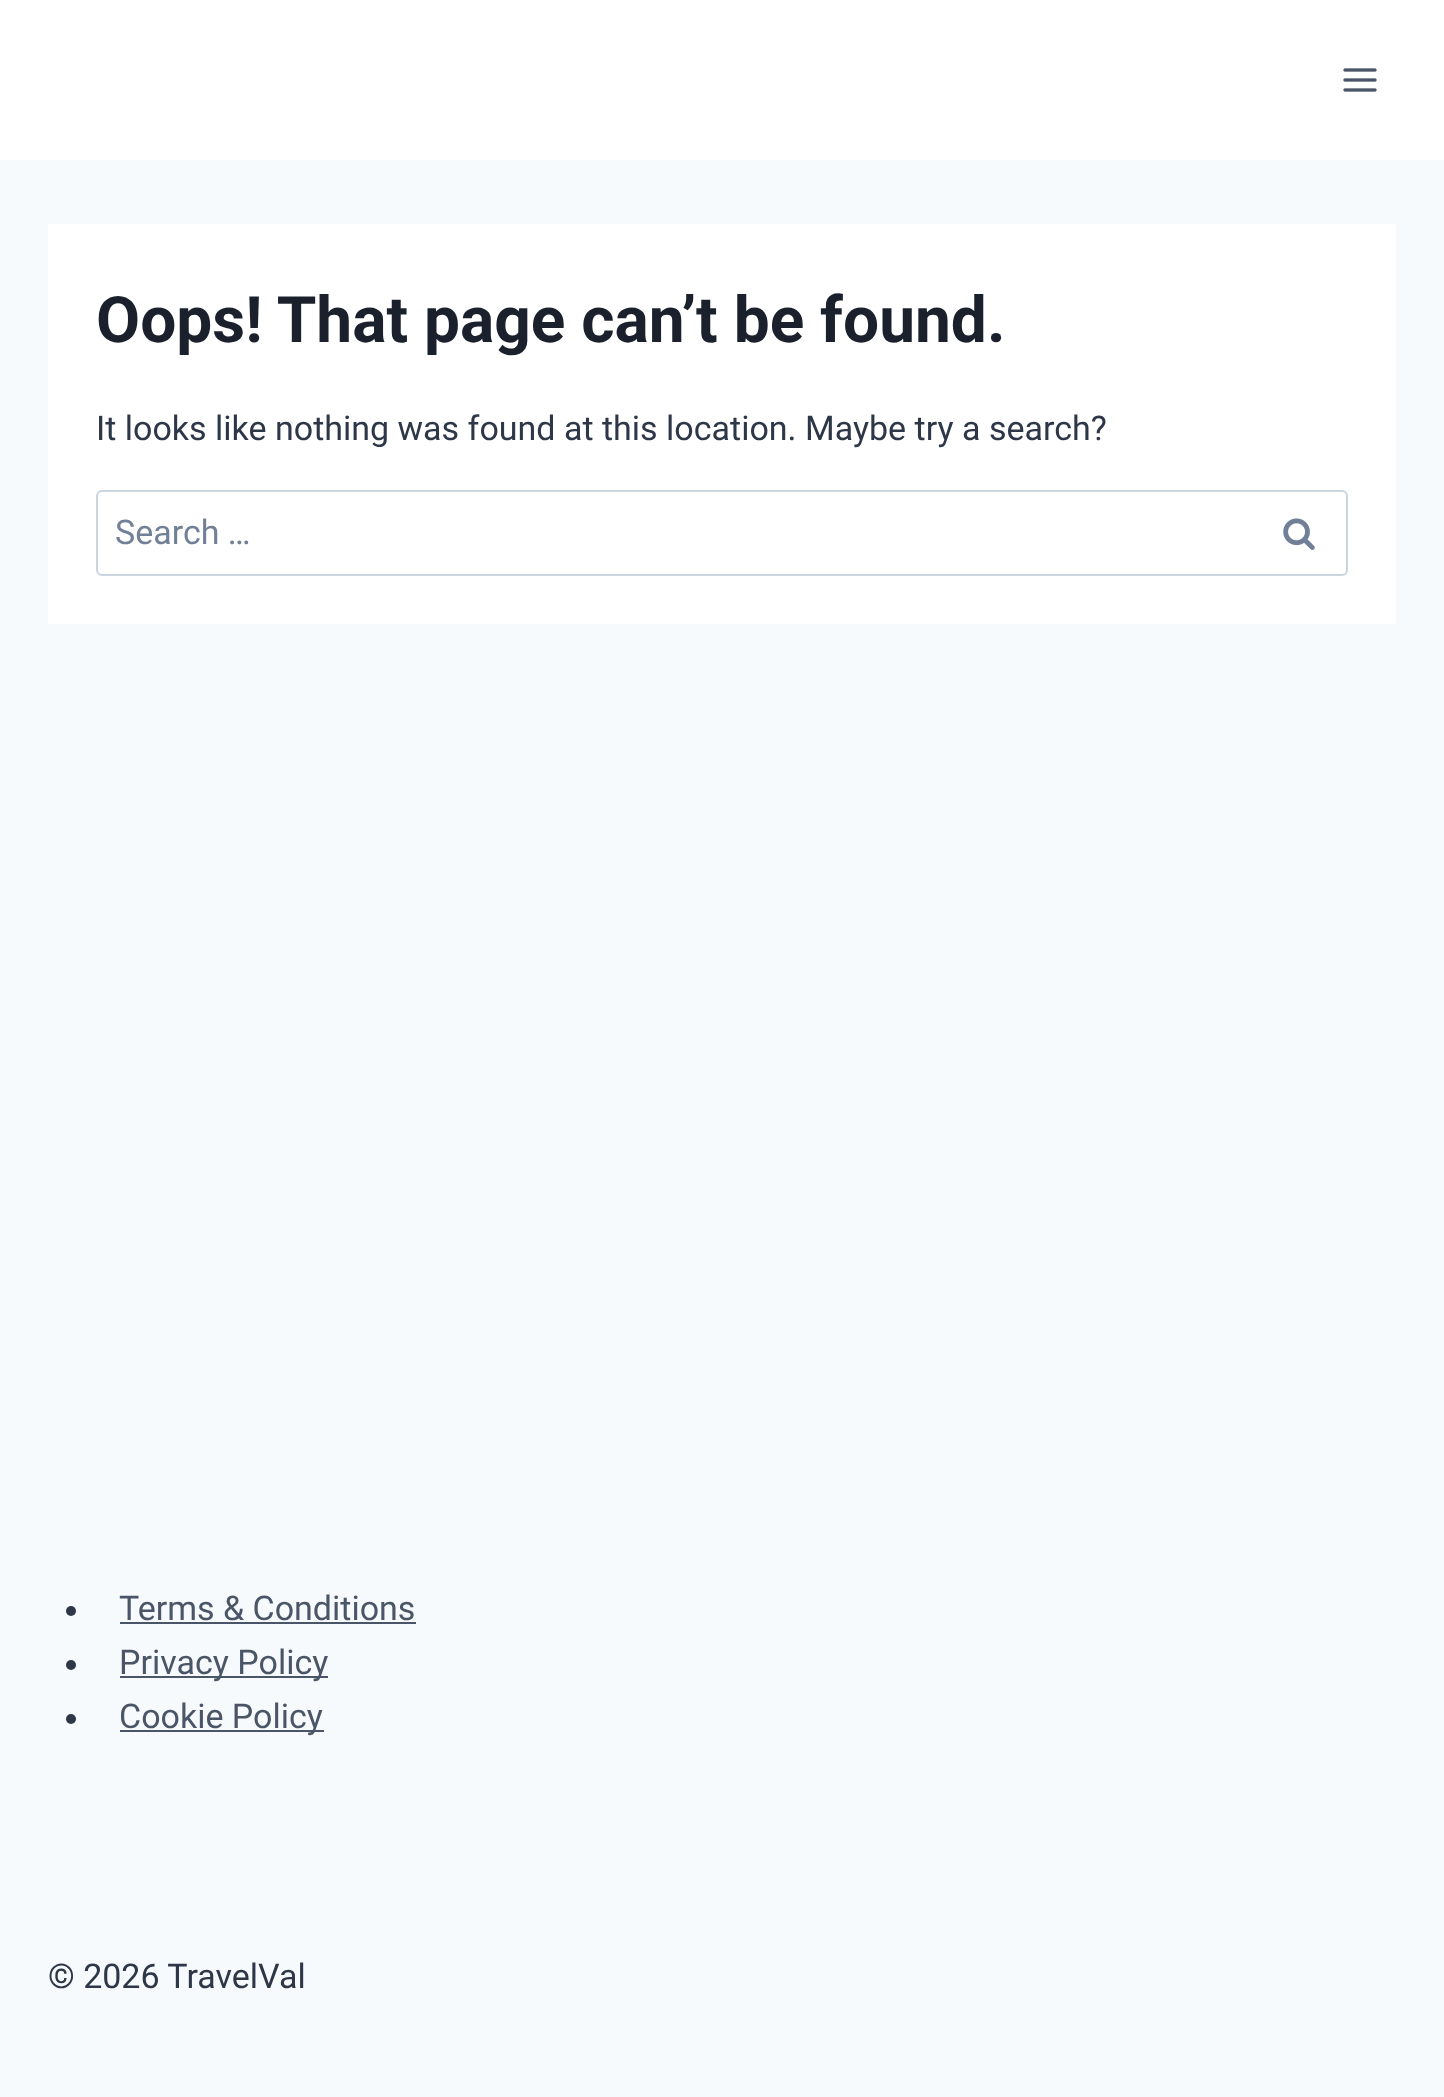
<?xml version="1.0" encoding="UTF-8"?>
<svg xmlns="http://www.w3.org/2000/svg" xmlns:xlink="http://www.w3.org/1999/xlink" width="1444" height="2097">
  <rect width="100%" height="100%" fill="#f7fafc" />
  <rect width="1444" height="160" fill="#ffffff" />
  <image x="1343" y="68" width="34" height="24" xlink:href="image1.png" />
  <rect x="48" y="224" width="1348" height="400" fill="#ffffff" />
  <rect x="97" y="491" width="1250" height="84" rx="5" fill="none" stroke="#cbd5e0" stroke-width="2" />
  <image x="1283" y="518" width="32" height="32" xlink:href="image2.png" />
  <circle cx="71" cy="1611" r="5" fill="#2d3748" />
  <rect x="120" y="1622" width="296" height="2" fill="#4a5568" />
  <circle cx="71" cy="1665" r="5" fill="#2d3748" />
  <rect x="120" y="1676" width="208" height="2" fill="#4a5568" />
  <circle cx="71" cy="1719" r="5" fill="#2d3748" />
  <rect x="120" y="1730" width="204" height="2" fill="#4a5568" />
  <text x="96" y="342" style="font-family: Roboto; font-size: 64px; font-weight: bold; fill: #1a202c">Oops! That page can’t be found.</text>
  <text x="96" y="440" style="font-family: Roboto; font-size: 34px; fill: #2d3748">It looks like nothing was found at this location. Maybe try a search?</text>
  <text x="115" y="544" style="font-family: Roboto; font-size: 34px; fill: #718096">Search …</text>
  <text x="119" y="1620" style="font-family: Roboto; font-size: 34px; fill: #4a5568">Terms &amp; Conditions</text>
  <text x="119" y="1674" style="font-family: Roboto; font-size: 34px; fill: #4a5568">Privacy Policy</text>
  <text x="119" y="1728" style="font-family: Roboto; font-size: 34px; fill: #4a5568">Cookie Policy</text>
  <text x="48" y="1988" style="font-family: Roboto; font-size: 34px; fill: #2d3748">© 2026 TravelVal</text>
</svg>
